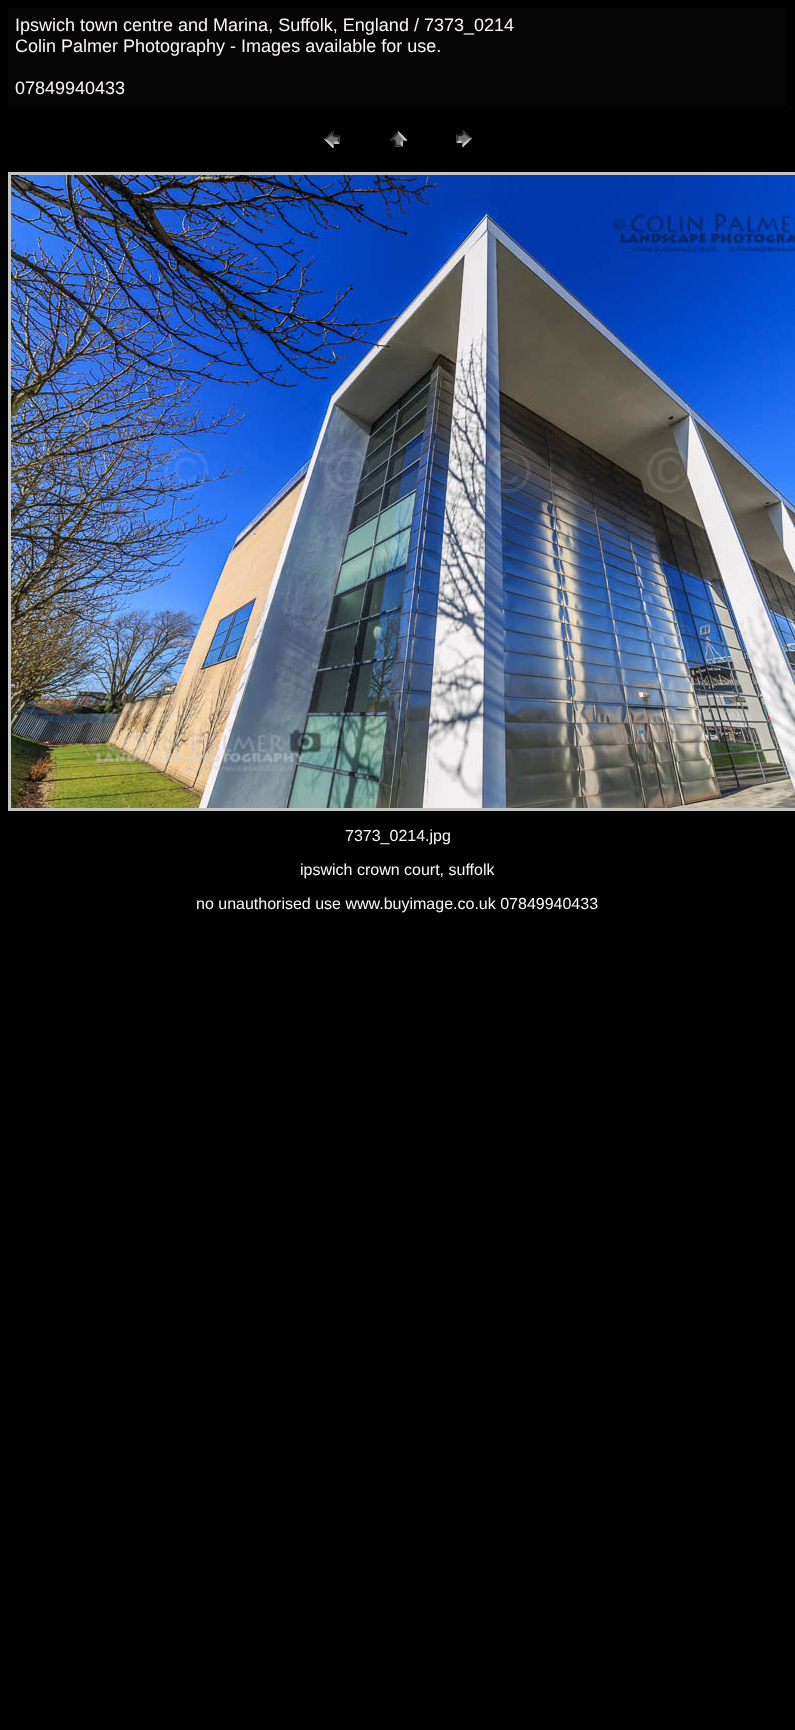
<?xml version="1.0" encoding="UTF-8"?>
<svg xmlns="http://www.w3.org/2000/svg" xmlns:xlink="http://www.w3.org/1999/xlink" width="795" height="1730">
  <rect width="100%" height="100%" fill="#020202" />
  <rect x="8" y="8" width="779" height="98" fill="#060606" />
  <image x="324" y="131" width="16" height="17" xlink:href="image1.png" />
  <image x="390" y="131" width="17" height="16" xlink:href="image2.png" />
  <image x="456" y="130" width="16" height="17" xlink:href="image3.png" />
  <rect x="9.5" y="173.5" width="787" height="636" fill="none" stroke="#c5c5c6" stroke-width="3" />
  <image x="11" y="175" width="784" height="633" xlink:href="image4.png" />
  <text x="15" y="31" style="font-family: Liberation Sans; font-size: 18px; fill: #fcf7f7">Ipswich town centre and Marina, Suffolk, England / 7373_0214</text>
  <text x="15" y="52" style="font-family: Liberation Sans; font-size: 18px; fill: #fcf7f7">Colin Palmer Photography - Images available for use.</text>
  <text x="15" y="94" style="font-family: Liberation Sans; font-size: 18px; fill: #fcf7f7">07849940433</text>
  <text x="345" y="841" style="font-family: Liberation Sans; font-size: 16px; fill: #fcf7f7">7373_0214.jpg</text>
  <text x="300" y="875" style="font-family: Liberation Sans; font-size: 16px; fill: #fcf7f7">ipswich crown court, suffolk</text>
  <text x="196" y="909" style="font-family: Liberation Sans; font-size: 16px; fill: #fcf7f7">no unauthorised use www.buyimage.co.uk 07849940433</text>
</svg>
